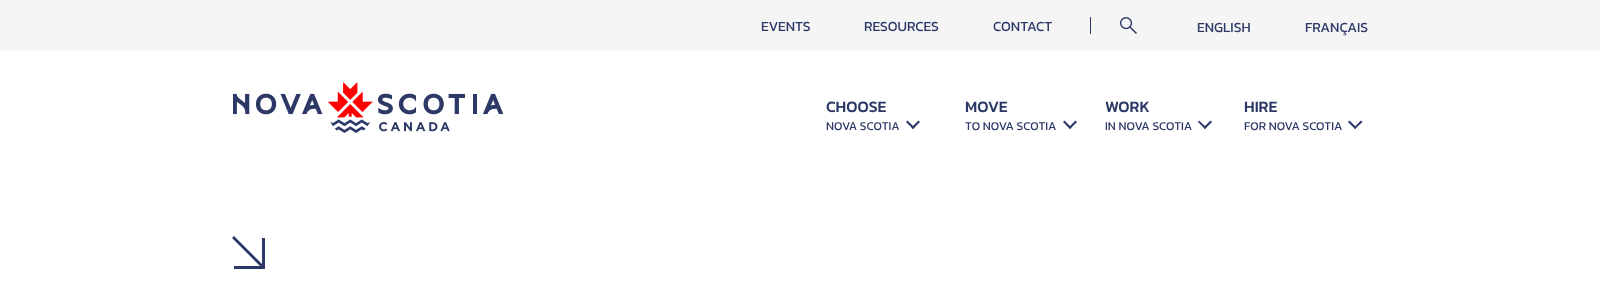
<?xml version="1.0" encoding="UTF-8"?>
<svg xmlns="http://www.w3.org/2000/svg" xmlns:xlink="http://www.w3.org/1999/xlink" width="1600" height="305">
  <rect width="100%" height="100%" fill="#ffffff" />
  <rect width="1600" height="51" fill="#f5f5f5" />
  <rect x="1090" y="17" width="1" height="17" fill="#2c3967" />
  <image x="1120" y="17" width="17" height="17" xlink:href="image1.png" />
  <image x="233" y="82" width="270" height="51" xlink:href="image2.png" />
  <path d="M 911.5 127.5 l 7 -7 l 1.5 1.5 l -7 7 z" fill="#2c3967" />
  <path d="M 906 122 l 1.5 -1.5 l 7 7 l -1.5 1.5 z" fill="#2c3967" />
  <path d="M 1068.5 127.5 l 7 -7 l 1.5 1.5 l -7 7 z" fill="#2c3967" />
  <path d="M 1063 122 l 1.5 -1.5 l 7 7 l -1.5 1.5 z" fill="#2c3967" />
  <path d="M 1203.5 127.5 l 7 -7 l 1.5 1.5 l -7 7 z" fill="#2c3967" />
  <path d="M 1198 122 l 1 -1.5 l 7.5 7 l -1.5 1.5 z" fill="#2c3967" />
  <path d="M 1354 127.5 l 7 -7 l 1.5 1.5 l -7.5 7 z" fill="#2c3967" />
  <path d="M 1348 122 l 1.5 -1.5 l 7 7 l -1.5 1.5 z" fill="#2c3967" />
  <path d="M 234 236 l -2 2 l 28 28 h -26 v 3 h 31 v -31 h -3 v 26 z" fill="#2c3967" />
  <text x="761" y="31" style="font-family: Kanit; font-size: 14px; fill: #2c3967">EVENTS</text>
  <text x="864" y="31" style="font-family: Kanit; font-size: 14px; fill: #2c3967">RESOURCES</text>
  <text x="993" y="31" style="font-family: Kanit; font-size: 14px; fill: #2c3967">CONTACT</text>
  <text x="1197" y="32" style="font-family: Kanit; font-size: 14px; fill: #2c3967">ENGLISH</text>
  <text x="1305" y="32" style="font-family: Kanit; font-size: 14px; fill: #2c3967">FRANÇAIS</text>
  <text x="826" y="112" style="font-family: Kanit; font-size: 16px; font-weight: 500; fill: #2c3967">CHOOSE</text>
  <text x="826" y="130" style="font-family: Kanit; font-size: 12px; fill: #2c3967">NOVA SCOTIA</text>
  <text x="965" y="112" style="font-family: Kanit; font-size: 16px; font-weight: 500; fill: #2c3967">MOVE</text>
  <text x="965" y="130" style="font-family: Kanit; font-size: 12px; fill: #2c3967">TO NOVA SCOTIA</text>
  <text x="1105" y="112" style="font-family: Kanit; font-size: 16px; font-weight: 500; fill: #2c3967">WORK</text>
  <text x="1105" y="130" style="font-family: Kanit; font-size: 12px; fill: #2c3967">IN NOVA SCOTIA</text>
  <text x="1244" y="112" style="font-family: Kanit; font-size: 16px; font-weight: 500; fill: #2c3967">HIRE</text>
  <text x="1244" y="130" style="font-family: Kanit; font-size: 12px; fill: #2c3967">FOR NOVA SCOTIA</text>
</svg>
